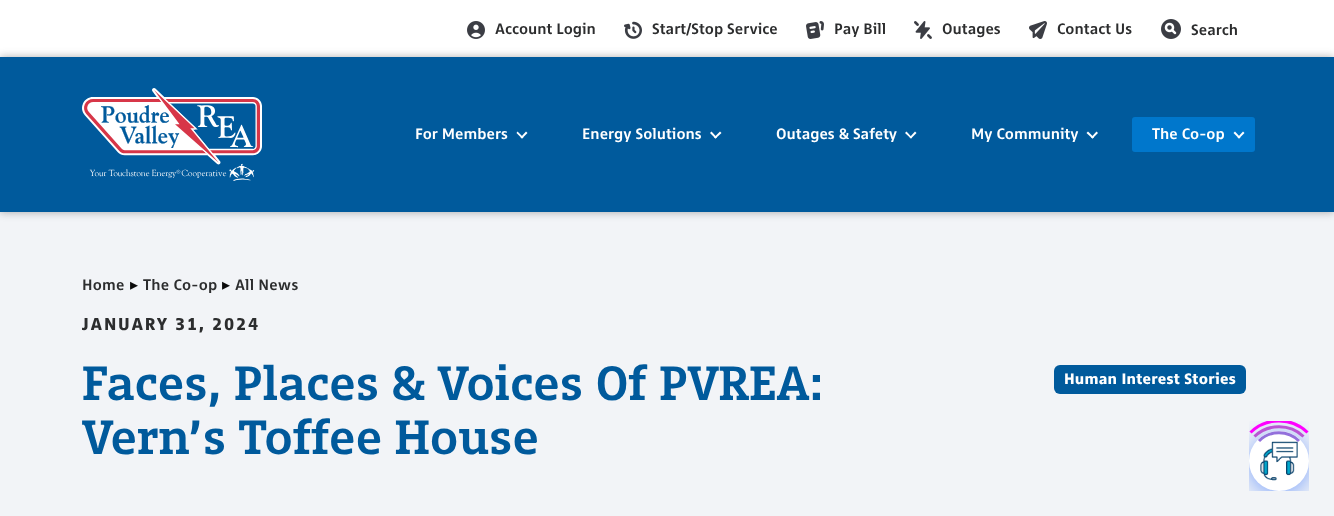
<?xml version="1.0" encoding="UTF-8"?>
<svg xmlns="http://www.w3.org/2000/svg" xmlns:xlink="http://www.w3.org/1999/xlink" width="1334" height="516">
  <defs>
    <clipPath id="clip1"><rect x="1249" y="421" width="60" height="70" /></clipPath>
    <clipPath id="clip2"><rect x="1249" y="421" width="60" height="70" /></clipPath>
  </defs>
  <rect width="100%" height="100%" fill="#f2f4f7" />
  <rect width="1334" height="57" fill="#ffffff" />
  <image x="467" y="21" width="18" height="18" xlink:href="image1.png" />
  <image x="624" y="21" width="18" height="18" xlink:href="image2.png" />
  <image x="806" y="21" width="18" height="18" xlink:href="image3.png" />
  <image x="914" y="21" width="18" height="18" xlink:href="image4.png" />
  <image x="1029" y="21" width="18" height="18" xlink:href="image5.png" />
  <image x="1161" y="19" width="20" height="20" xlink:href="image6.png" />
  <rect y="57" width="1334" height="155" fill="#2c2d2e" fill-opacity="0.39" filter="blur(4.5px)" />
  <rect y="57" width="1334" height="155" fill="#005a9c" />
  <image x="82" y="88" width="180" height="93" xlink:href="image7.png" />
  <path d="M 527.5 133 l -5.5 5.5 l -1.5 -1 l 5.5 -6 z" fill="#ffffff" />
  <path d="M 523.5 137.5 l -1.5 1 l -5.5 -5.5 l 1 -1.5 z" fill="#ffffff" />
  <path d="M 721.5 133 l -6 5.5 l -1.5 -1 l 6 -6 z" fill="#ffffff" />
  <path d="M 717 137.5 l -1.5 1 l -5.5 -5.5 l 1.5 -1.5 z" fill="#ffffff" />
  <path d="M 916.5 133 l -5.5 5.5 l -1.5 -1 l 5.5 -6 z" fill="#ffffff" />
  <path d="M 912 137.5 l -1 1 l -6 -5.5 l 1.5 -1.5 z" fill="#ffffff" />
  <path d="M 1098 133 l -5.5 5.5 l -1.5 -1 l 5.5 -6 z" fill="#ffffff" />
  <path d="M 1094 137.5 l -1.5 1 l -6 -5.5 l 1.5 -1.5 z" fill="#ffffff" />
  <rect x="1132" y="117" width="123" height="35" rx="3" fill="#0077cc" />
  <path d="M 1244.5 133 l -5.5 5.5 l -1.5 -1 l 5.5 -6 z" fill="#ffffff" />
  <path d="M 1240.5 137.5 l -1.5 1 l -5.5 -5.5 l 1.5 -1.5 z" fill="#ffffff" />
  <rect x="1054" y="365" width="192" height="29" rx="6" fill="#005a9c" />
  <g clip-path="url(#clip1)">
    <rect x="1249" y="435" width="60" height="60" rx="30" fill="#004dff" fill-opacity="0.5" filter="blur(12px)" />
  </g>
  <circle cx="1279" cy="461" r="30" fill="#ffffff" />
  <image x="1260" y="441" width="38" height="40" xlink:href="image8.png" />
  <path d="M 1259 441 c 11 -11 29 -11 40 0" fill="none" stroke="#9370db" stroke-width="3" />
  <path d="M 1254.5 436.5 c 13.5 -13 35.5 -13 49 0" fill="none" stroke="#ba55d3" stroke-width="3" />
  <g clip-path="url(#clip2)">
    <path d="M 1250.5 432.5 c 15.5 -15.5 41.5 -15.5 57 0" fill="none" stroke="#ff00ff" stroke-width="3" />
  </g>
  <text x="495" y="34" style="font-family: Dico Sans; font-size: 15px; font-weight: bold; fill: #2c2d2e">Account Login</text>
  <text x="652" y="34" style="font-family: Dico Sans; font-size: 15px; font-weight: bold; fill: #2c2d2e">Start/Stop Service</text>
  <text x="834" y="34" style="font-family: Dico Sans; font-size: 15px; font-weight: bold; fill: #2c2d2e">Pay Bill</text>
  <text x="942" y="34" style="font-family: Dico Sans; font-size: 15px; font-weight: bold; fill: #2c2d2e">Outages</text>
  <text x="1057" y="34" style="font-family: Dico Sans; font-size: 15px; font-weight: bold; fill: #2c2d2e">Contact Us</text>
  <text x="1191" y="35" style="font-family: Dico Sans; font-size: 15px; font-weight: bold; fill: #2c2d2e">Search</text>
  <text x="415" y="139" style="font-family: Dico Sans; font-size: 15px; font-weight: bold; fill: #ffffff">For Members</text>
  <text x="582" y="139" style="font-family: Dico Sans; font-size: 15px; font-weight: bold; fill: #ffffff">Energy Solutions</text>
  <text x="776" y="139" style="font-family: Dico Sans; font-size: 15px; font-weight: bold; fill: #ffffff">Outages &amp; Safety</text>
  <text x="971" y="139" style="font-family: Dico Sans; font-size: 15px; font-weight: bold; fill: #ffffff">My Community</text>
  <text x="1152" y="139" style="font-family: Dico Sans; font-size: 15px; font-weight: bold; fill: #ffffff">The Co-op</text>
  <text x="82" y="290" style="font-family: Dico Sans; font-size: 15px; font-weight: bold; letter-spacing: 0.2px; fill: #2c2d2e">Home</text>
  <text x="130" y="290" style="font-family: DejaVu Sans; font-size: 16px; fill: #0a0a0a">▸</text>
  <text x="143" y="290" style="font-family: Dico Sans; font-size: 15px; font-weight: bold; letter-spacing: 0.2px; fill: #2c2d2e">The Co-op</text>
  <text x="222" y="290" style="font-family: DejaVu Sans; font-size: 16px; fill: #0a0a0a">▸</text>
  <text x="235" y="290" style="font-family: Dico Sans; font-size: 15px; font-weight: bold; letter-spacing: 0.2px; fill: #2c2d2e">All News</text>
  <text x="82" y="330" style="font-family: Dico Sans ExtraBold; font-size: 17px; font-weight: 800; letter-spacing: 1.75px; fill: #2c2d2e">JANUARY 31, 2024</text>
  <text x="82" y="400" style="font-family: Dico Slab; font-size: 48px; font-weight: bold; letter-spacing: -0.25px; fill: #005a9c">Faces, Places &amp; Voices Of PVREA:</text>
  <text x="82" y="454" style="font-family: Dico Slab; font-size: 48px; font-weight: bold; letter-spacing: -0.25px; fill: #005a9c">Vern’s Toffee House</text>
  <text x="1064" y="384" style="font-family: Dico Sans ExtraBold; font-size: 15px; font-weight: 800; letter-spacing: 0.2px; fill: #ffffff">Human Interest Stories</text>
</svg>
